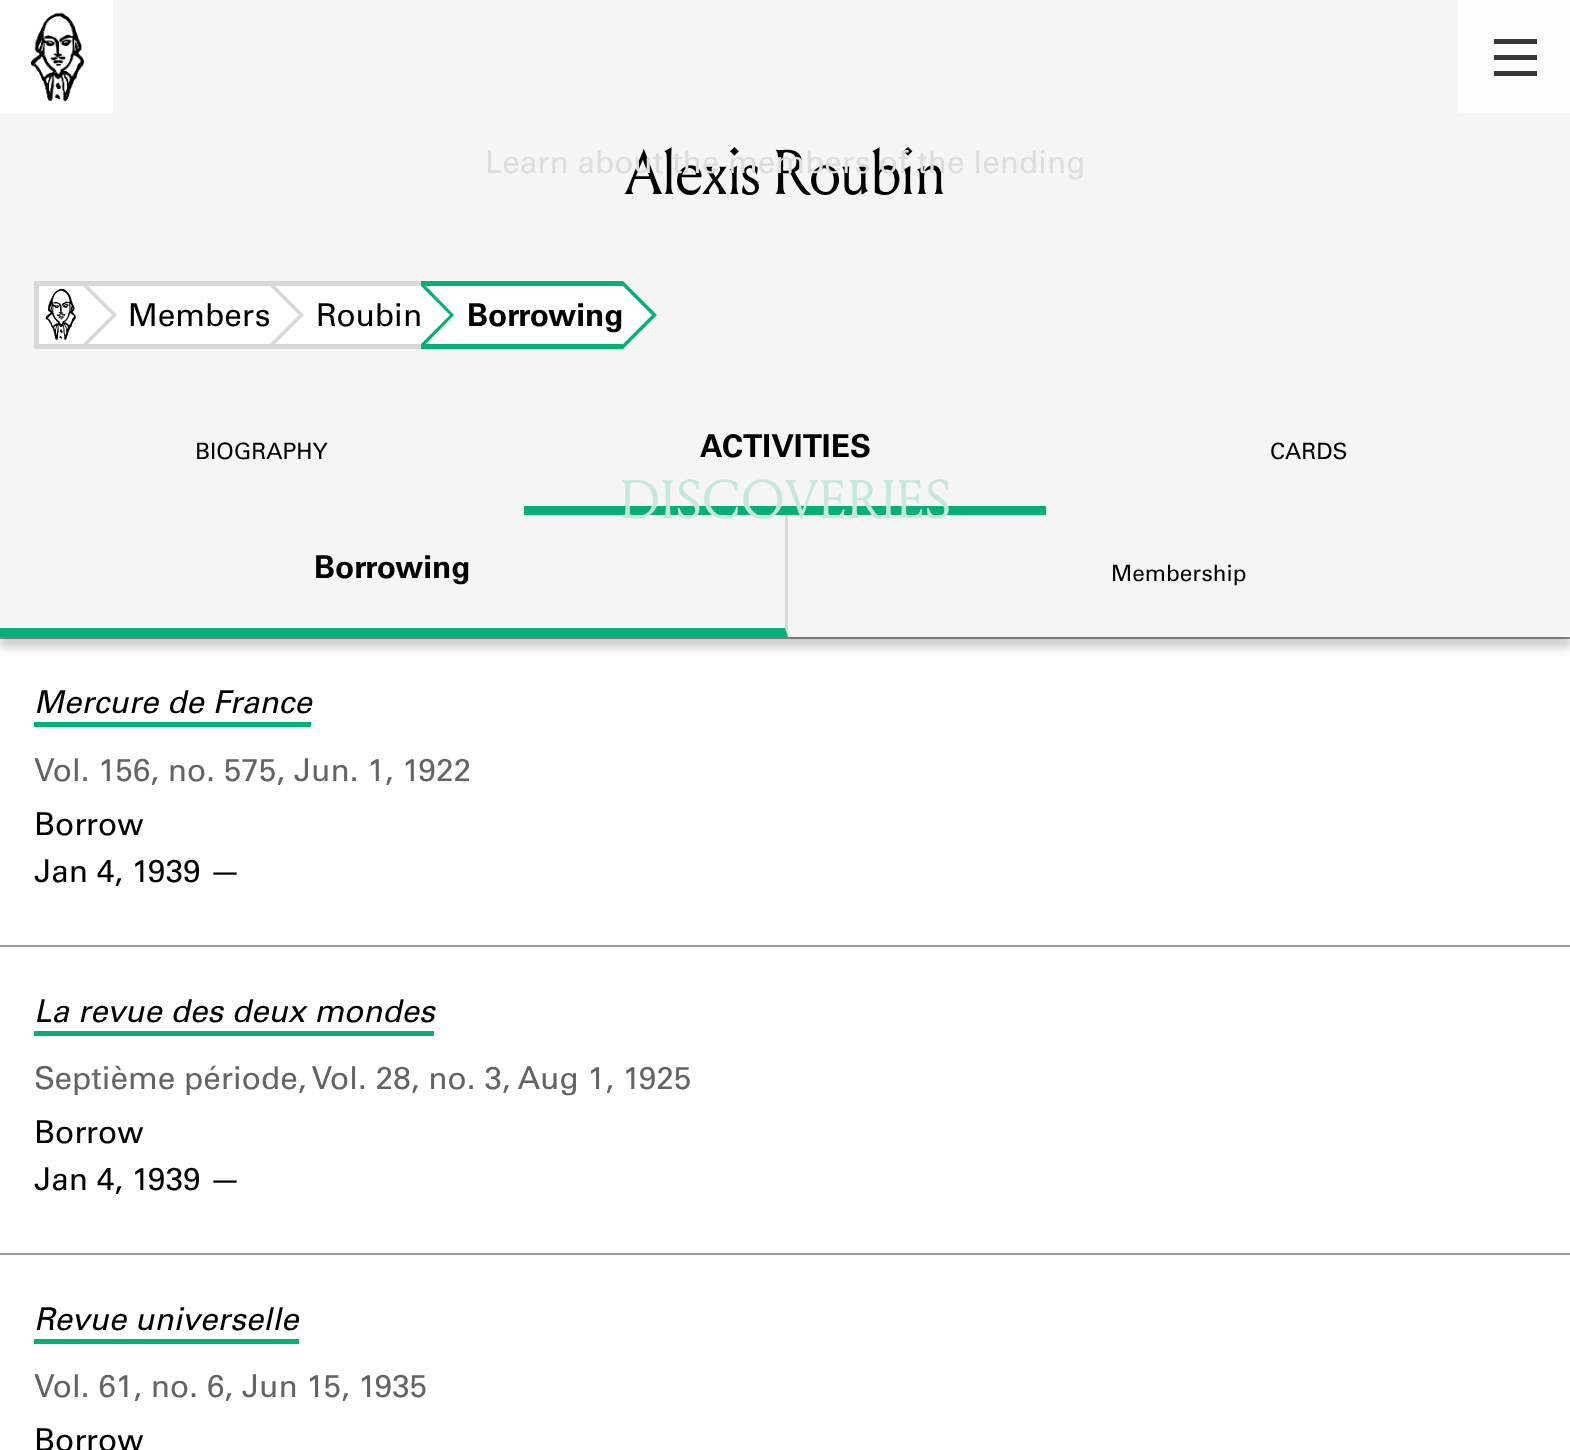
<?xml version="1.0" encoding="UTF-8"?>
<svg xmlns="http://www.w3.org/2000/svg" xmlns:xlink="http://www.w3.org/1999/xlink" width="1570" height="1450">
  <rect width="100%" height="100%" fill="#f5f5f5" />
  <rect width="113" height="113" fill="#ffffff" />
  <image x="31" y="12" width="54" height="90" xlink:href="image1.png" />
  <rect x="1458" width="112" height="113" fill="#fdfdfd" />
  <rect x="1494" y="39" width="43" height="5" fill="#363636" />
  <rect x="1494" y="55" width="43" height="5" fill="#363636" />
  <rect x="1494" y="71" width="43" height="5" fill="#363636" />
  <rect y="639" width="1570" height="811" fill="#ffffff" />
  <rect x="39" y="286" width="44" height="58" fill="#ffffff" />
  <rect x="34" y="281" width="387" height="5" fill="#d8d8d8" />
  <rect x="34" y="344" width="387" height="5" fill="#d8d8d8" />
  <rect x="34" y="281" width="5" height="68" fill="#d8d8d8" />
  <rect x="88" y="286" width="182" height="58" fill="#ffffff" />
  <path d="M 83 349 v -68 l 34 34 z" fill="#d8d8d8" />
  <path d="M 83 344 v -58 l 29 29 z" fill="#ffffff" />
  <image x="45" y="289" width="31" height="51" xlink:href="image2.png" />
  <rect x="275" y="286" width="146" height="58" fill="#ffffff" />
  <path d="M 270 349 v -68 l 34 34 z" fill="#d8d8d8" />
  <path d="M 270 344 v -58 l 29 29 z" fill="#ffffff" />
  <rect x="425" y="286" width="198" height="58" fill="#ffffff" />
  <rect x="421" y="281" width="202" height="5" fill="#07ae79" />
  <rect x="421" y="344" width="202" height="5" fill="#07ae79" />
  <path d="M 421 349 v -68 l 33 34 z" fill="#07ae79" />
  <path d="M 421 344 v -58 l 29 29 z" fill="#ffffff" />
  <path d="M 623 349 v -68 l 34 34 z" fill="#07ae79" />
  <path d="M 623 344 v -58 l 29 29 z" fill="#ffffff" />
  <rect x="524" y="506" width="522" height="9" fill="#07ae79" />
  <rect y="637" width="1570" height="2" fill="#979797" />
  <rect y="527" width="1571" height="121" fill="#000000" fill-opacity="0.19" filter="blur(4.5px)" />
  <rect y="520" width="1570" height="117" fill="#f5f5f5" />
  <path d="M 788 515 v 122 l -3 -9 v -113 z" fill="#d8d8d8" />
  <path d="M 788 637 h -788 v -9 h 785 z" fill="#07ae79" />
  <rect y="945" width="1570" height="2" fill="#979797" />
  <rect x="34" y="722" width="277" height="5" fill="#07ae79" />
  <rect y="1253" width="1570" height="2" fill="#979797" />
  <rect x="34" y="1031" width="400" height="5" fill="#07ae79" />
  <rect x="34" y="1339" width="265" height="5" fill="#07ae79" />
  <text x="625" y="194" style="font-family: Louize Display; font-size: 63px; fill: #000000">Alexis Roubin</text>
  <text x="485" y="173" style="font-family: Univers; font-size: 31.5px; fill: #dddddd">Learn about the members of the lending</text>
  <text x="620" y="518" style="font-family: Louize; font-size: 54px; fill: #c5e7dc">DISCOVERIES</text>
  <text x="128" y="326" style="font-family: Univers; font-size: 31.5px; fill: #000000">Members</text>
  <text x="316" y="326" style="font-family: Univers; font-size: 31.5px; fill: #000000">Roubin</text>
  <text x="467" y="326" style="font-family: Univers; font-size: 31.5px; font-weight: bold; fill: #000000">Borrowing</text>
  <text x="195" y="459" style="font-family: Univers; font-size: 22.5px; fill: #000000">BIOGRAPHY</text>
  <text x="700" y="457" style="font-family: Univers; font-size: 31.5px; font-weight: bold; fill: #000000">ACTIVITIES</text>
  <text x="1270" y="459" style="font-family: Univers; font-size: 22.5px; fill: #000000">CARDS</text>
  <text x="314" y="578" style="font-family: Univers; font-size: 31.5px; font-weight: bold; fill: #000000">Borrowing</text>
  <text x="1111" y="581" style="font-family: Univers; font-size: 22.5px; fill: #000000">Membership</text>
  <text x="34" y="713" style="font-family: Univers; font-size: 31.5px; font-style: italic; fill: #000000">Mercure de France</text>
  <text x="34" y="781" style="font-family: Univers; font-size: 31.5px; fill: #646464">Vol. 156, no. 575, Jun. 1, 1922</text>
  <text x="34" y="835" style="font-family: Univers; font-size: 31.5px; fill: #000000">Borrow</text>
  <text x="34" y="882" style="font-family: Univers; font-size: 31.5px; fill: #000000">Jan 4, 1939 —</text>
  <text x="34" y="1022" style="font-family: Univers; font-size: 31.5px; font-style: italic; fill: #000000">La revue des deux mondes</text>
  <text x="34" y="1089" style="font-family: Univers; font-size: 31.5px; fill: #646464">Septième période, Vol. 28, no. 3, Aug 1, 1925</text>
  <text x="34" y="1143" style="font-family: Univers; font-size: 31.5px; fill: #000000">Borrow</text>
  <text x="34" y="1190" style="font-family: Univers; font-size: 31.5px; fill: #000000">Jan 4, 1939 —</text>
  <text x="34" y="1330" style="font-family: Univers; font-size: 31.5px; font-style: italic; fill: #000000">Revue universelle</text>
  <text x="34" y="1397" style="font-family: Univers; font-size: 31.5px; fill: #646464">Vol. 61, no. 6, Jun 15, 1935</text>
  <text x="34" y="1451" style="font-family: Univers; font-size: 31.5px; fill: #000000">Borrow</text>
</svg>
